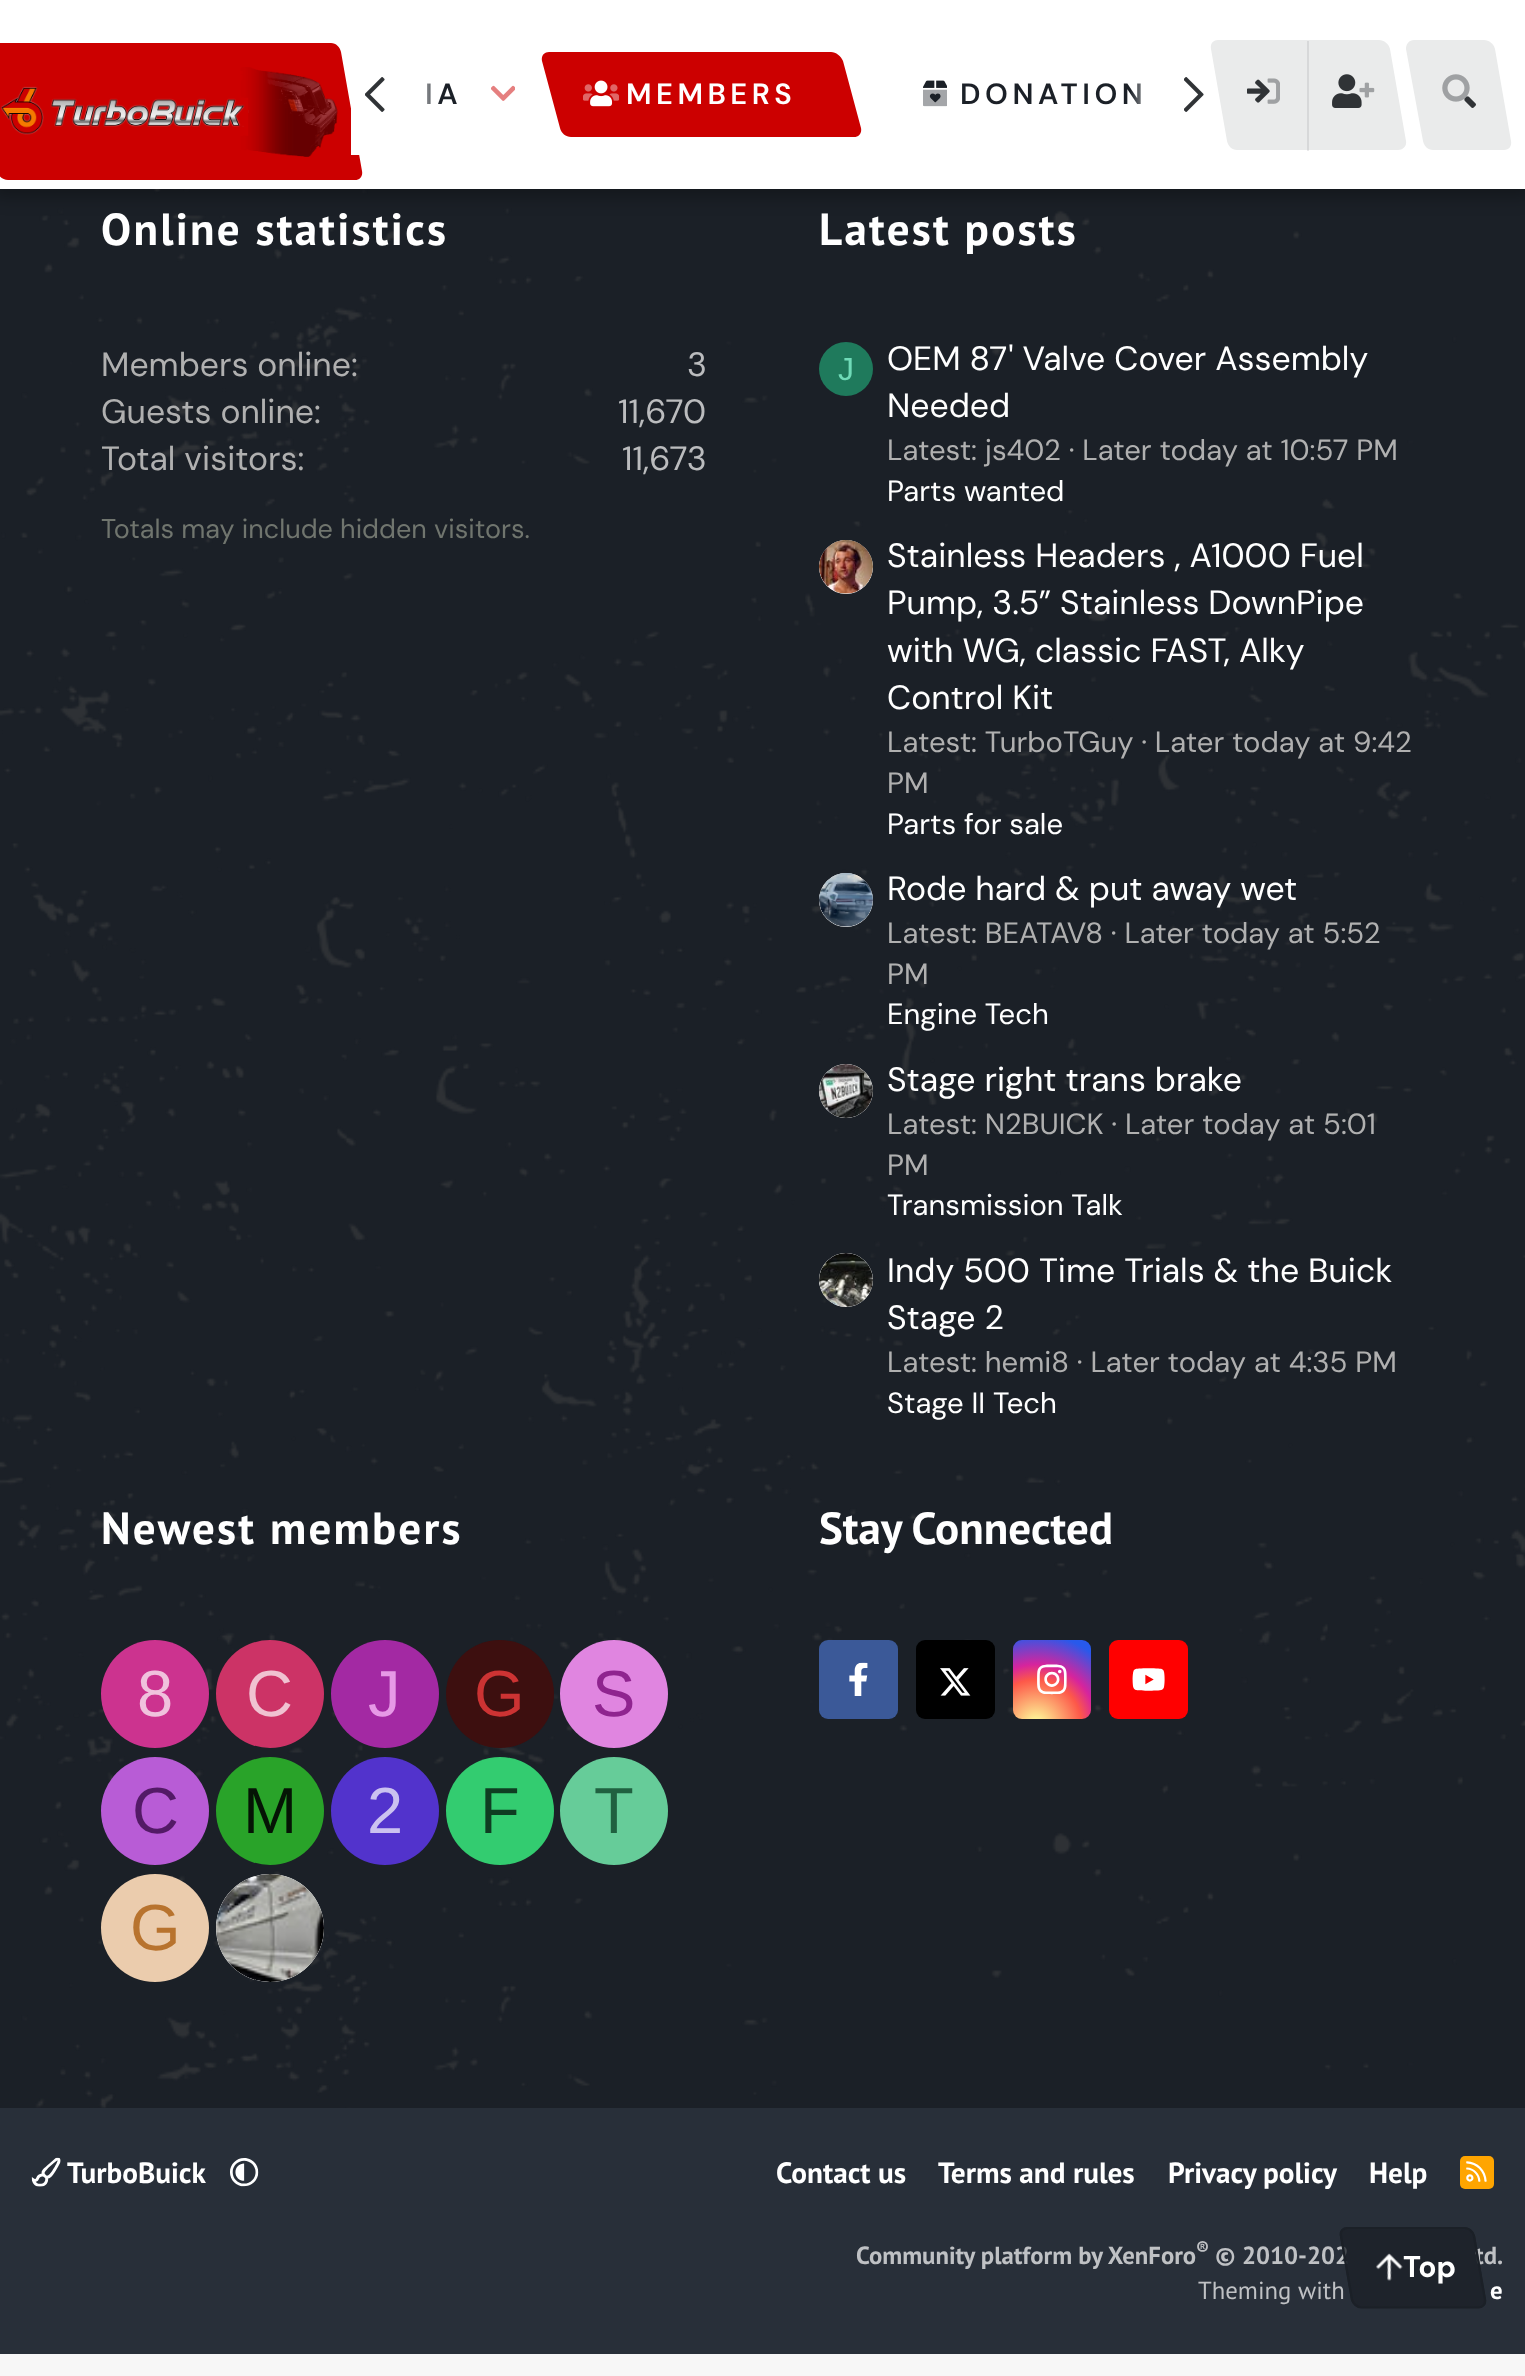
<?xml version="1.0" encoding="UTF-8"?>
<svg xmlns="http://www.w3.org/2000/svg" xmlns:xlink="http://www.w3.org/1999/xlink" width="1525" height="2376">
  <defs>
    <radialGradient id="g1" gradientUnits="userSpaceOnUse" cx="1036" cy="1725" r="101"><stop offset="0" stop-color="#fdf496" /><stop offset="0.05" stop-color="#fdf496" /><stop offset="0.45" stop-color="#fd5849" /><stop offset="0.6" stop-color="#d6249d" /><stop offset="0.9" stop-color="#2859eb" /></radialGradient>
    <linearGradient id="g2" gradientUnits="userSpaceOnUse" x1="351" y1="95" x2="441" y2="95"><stop offset="0.66" stop-color="#ffffff" /><stop offset="1" stop-color="#ffffff" stop-opacity="0" /></linearGradient>
    <linearGradient id="g3" gradientUnits="userSpaceOnUse" x1="1130" y1="95" x2="1220" y2="95"><stop offset="0" stop-color="#ffffff" stop-opacity="0" /><stop offset="0.33" stop-color="#ffffff" /></linearGradient>
  </defs>
  <rect width="100%" height="100%" fill="#f7f7f7" />
  <rect y="189" width="1525" height="1919" fill="#1b2027" />
  <image x="0" y="189" width="1525" height="1919" xlink:href="image10.png" />
  <rect x="-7" y="-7" width="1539" height="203" fill="#000000" fill-opacity="0.3" filter="blur(9px)" />
  <rect width="1525" height="189" fill="#ffffff" />
  <path d="M -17 43 h 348 c 5 0 9 4 10 9 l 21 119 c 1 5 -2 9 -7 9 h -347 c -5 0 -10 -4 -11 -9 l -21 -119 c -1 -5 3 -9 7 -9 z" fill="#cc0000" />
  <image x="1" y="67" width="337" height="90" xlink:href="image1.png" />
  <image x="491" y="85" width="24" height="16" xlink:href="image3.png" />
  <path d="M 549 52 h 282 c 5 0 10 4 12 9 l 18 67 c 1 5 -2 9 -7 9 h -283 c -5 0 -10 -4 -11 -9 l -18 -67 c -1 -5 2 -9 7 -9 z" fill="#cc0000" />
  <image x="583" y="80" width="36" height="27" xlink:href="image4.png" />
  <image x="923" y="80" width="24" height="27" xlink:href="image5.png" />
  <image x="1184" y="77" width="20" height="35" xlink:href="image6.png" />
  <path d="M 1218 40 h 161 c 5 0 10 4 11 9 l 16 92 c 1 5 -3 9 -8 9 h -161 c -5 0 -9 -4 -10 -9 l -16 -92 c -1 -5 2 -9 7 -9 z" fill="#eaebeb" />
  <image x="1247" y="78" width="33" height="26" xlink:href="image7.png" />
  <rect x="1307" y="41" width="2" height="110" fill="#303336" fill-opacity="0.1" />
  <image x="1332" y="74" width="43" height="34" xlink:href="image8.png" />
  <path d="M 1414 40 h 70 c 5 0 10 4 11 9 l 16 92 c 1 5 -2 9 -7 9 h -71 c -5 0 -9 -4 -10 -9 l -17 -92 c 0 -5 3 -9 8 -9 z" fill="#eaebeb" />
  <image x="1442" y="74" width="34" height="34" xlink:href="image9.png" />
  <circle cx="846" cy="369" r="27" fill="#1f7a5c" />
  <circle cx="846" cy="567" r="27" fill="#ffffff" />
  <image x="819" y="540" width="54" height="54" xlink:href="image11.png" />
  <circle cx="846" cy="900" r="27" fill="#ffffff" />
  <image x="819" y="873" width="54" height="54" xlink:href="image12.png" />
  <circle cx="846" cy="1091" r="27" fill="#ffffff" />
  <image x="819" y="1064" width="54" height="54" xlink:href="image13.png" />
  <circle cx="846" cy="1280" r="27" fill="#ffffff" />
  <image x="819" y="1253" width="54" height="54" xlink:href="image14.png" />
  <circle cx="155" cy="1694" r="54" fill="#cc338f" />
  <circle cx="270" cy="1694" r="54" fill="#cc3366" />
  <circle cx="385" cy="1694" r="54" fill="#a329a3" />
  <circle cx="500" cy="1694" r="54" fill="#3d0f0f" />
  <circle cx="614" cy="1694" r="54" fill="#e085e0" />
  <circle cx="155" cy="1811" r="54" fill="#b85cd6" />
  <circle cx="270" cy="1811" r="54" fill="#29a329" />
  <circle cx="385" cy="1811" r="54" fill="#5233cc" />
  <circle cx="500" cy="1811" r="54" fill="#33cc70" />
  <circle cx="614" cy="1811" r="54" fill="#66cc99" />
  <circle cx="155" cy="1928" r="54" fill="#ebccad" />
  <circle cx="270" cy="1928" r="54" fill="#ffffff" />
  <image x="216" y="1874" width="108" height="108" xlink:href="image15.png" />
  <rect x="819" y="1640" width="79" height="79" rx="9" fill="#3b5998" />
  <image x="849" y="1662" width="19" height="34" xlink:href="image16.png" />
  <rect x="916" y="1640" width="79" height="79" rx="9" fill="#000000" />
  <image x="940" y="1668" width="31" height="28" xlink:href="image17.png" />
  <rect x="1013" y="1640" width="78" height="79" rx="9" fill="url(#g1)" />
  <image x="1037" y="1664" width="30" height="31" xlink:href="image18.png" />
  <rect x="1109" y="1640" width="79" height="79" rx="9" fill="#ff0000" />
  <image x="1132" y="1668" width="33" height="23" xlink:href="image19.png" />
  <rect y="2108" width="1525" height="246" fill="#282f39" />
  <image x="31" y="2157" width="30" height="30" xlink:href="image20.png" />
  <image x="230" y="2158" width="29" height="29" xlink:href="image21.png" />
  <rect x="1460" y="2156" width="34" height="33" rx="5" fill="#ffa500" />
  <image x="1466" y="2161" width="21" height="21" xlink:href="image22.png" />
  <text x="425" y="104" style="font-family: DM Sans; font-size: 29.25px; font-weight: 600; letter-spacing: 4.5px; fill: #1b2027">IA</text>
  <rect x="351" y="83" width="89" height="72" fill="url(#g2)" />
  <image x="365" y="77" width="20" height="35" xlink:href="image2.png" />
  <text x="626" y="104" style="font-family: DM Sans; font-size: 29.25px; font-weight: 600; letter-spacing: 4.5px; fill: #ffffff">MEMBERS</text>
  <text x="960" y="104" style="font-family: DM Sans; font-size: 29.25px; font-weight: 600; letter-spacing: 4.5px; fill: #1b2027">DONATION</text>
  <rect x="1131" y="83" width="10" height="21" fill="url(#g3)" />
  <text x="101" y="245" style="font-family: PT Sans; font-size: 45px; font-weight: bold; letter-spacing: 2.25px; fill: #ffffff">Online statistics</text>
  <text x="101" y="376" style="font-family: DM Sans; font-size: 33.75px; fill: #b0b0b0">Members online:</text>
  <text x="687" y="376" style="font-family: DM Sans; font-size: 33.75px; fill: #bbbcbe">3</text>
  <text x="101" y="423" style="font-family: DM Sans; font-size: 33.75px; fill: #b0b0b0">Guests online:</text>
  <text x="618" y="423" style="font-family: DM Sans; font-size: 33.75px; fill: #bbbcbe">11,670</text>
  <text x="101" y="470" style="font-family: DM Sans; font-size: 33.75px; fill: #b0b0b0">Total visitors:</text>
  <text x="622" y="470" style="font-family: DM Sans; font-size: 33.75px; fill: #bbbcbe">11,673</text>
  <text x="101" y="538" style="font-family: DM Sans; font-size: 27px; fill: #70756e">Totals may include hidden visitors.</text>
  <text x="819" y="245" style="font-family: PT Sans; font-size: 45px; font-weight: bold; letter-spacing: 2.25px; fill: #ffffff">Latest posts</text>
  <text x="838" y="380" style="font-family: Liberation Sans; font-size: 32px; fill: #70dbb8">J</text>
  <text x="887" y="370" style="font-family: DM Sans; font-size: 33.75px; fill: #ffffff">OEM 87' Valve Cover Assembly</text>
  <text x="887" y="417" style="font-family: DM Sans; font-size: 33.75px; fill: #ffffff">Needed</text>
  <text x="887" y="460" style="font-family: DM Sans; font-size: 29.25px; fill: #b0b0b0">Latest: js402 · Later today at 10:57 PM</text>
  <text x="887" y="501" style="font-family: DM Sans; font-size: 29.25px; fill: #ffffff">Parts wanted</text>
  <text x="887" y="567" style="font-family: DM Sans; font-size: 33.75px; fill: #ffffff">Stainless Headers , A1000 Fuel</text>
  <text x="887" y="614" style="font-family: DM Sans; font-size: 33.75px; fill: #ffffff">Pump, 3.5” Stainless DownPipe</text>
  <text x="887" y="662" style="font-family: DM Sans; font-size: 33.75px; fill: #ffffff">with WG, classic FAST, Alky</text>
  <text x="887" y="709" style="font-family: DM Sans; font-size: 33.75px; fill: #ffffff">Control Kit</text>
  <text x="887" y="752" style="font-family: DM Sans; font-size: 29.25px; fill: #b0b0b0">Latest: TurboTGuy · Later today at 9:42</text>
  <text x="887" y="793" style="font-family: DM Sans; font-size: 29.25px; fill: #b0b0b0">PM</text>
  <text x="887" y="834" style="font-family: DM Sans; font-size: 29.25px; fill: #ffffff">Parts for sale</text>
  <text x="887" y="900" style="font-family: DM Sans; font-size: 33.75px; fill: #ffffff">Rode hard &amp; put away wet</text>
  <text x="887" y="943" style="font-family: DM Sans; font-size: 29.25px; fill: #b0b0b0">Latest: BEATAV8 · Later today at 5:52</text>
  <text x="887" y="984" style="font-family: DM Sans; font-size: 29.25px; fill: #b0b0b0">PM</text>
  <text x="887" y="1024" style="font-family: DM Sans; font-size: 29.25px; fill: #ffffff">Engine Tech</text>
  <text x="887" y="1091" style="font-family: DM Sans; font-size: 33.75px; fill: #ffffff">Stage right trans brake</text>
  <text x="887" y="1134" style="font-family: DM Sans; font-size: 29.25px; fill: #b0b0b0">Latest: N2BUICK · Later today at 5:01</text>
  <text x="887" y="1175" style="font-family: DM Sans; font-size: 29.25px; fill: #b0b0b0">PM</text>
  <text x="887" y="1215" style="font-family: DM Sans; font-size: 29.25px; fill: #ffffff">Transmission Talk</text>
  <text x="887" y="1282" style="font-family: DM Sans; font-size: 33.75px; fill: #ffffff">Indy 500 Time Trials &amp; the Buick</text>
  <text x="887" y="1329" style="font-family: DM Sans; font-size: 33.75px; fill: #ffffff">Stage 2</text>
  <text x="887" y="1372" style="font-family: DM Sans; font-size: 29.25px; fill: #b0b0b0">Latest: hemi8 · Later today at 4:35 PM</text>
  <text x="887" y="1413" style="font-family: DM Sans; font-size: 29.25px; fill: #ffffff">Stage II Tech</text>
  <text x="101" y="1544" style="font-family: PT Sans; font-size: 45px; font-weight: bold; letter-spacing: 2.25px; fill: #ffffff">Newest members</text>
  <text x="137" y="1716" style="font-family: Liberation Sans; font-size: 65px; fill: #f0c2dd">8</text>
  <text x="246" y="1716" style="font-family: Liberation Sans; font-size: 65px; fill: #f0c2d1">C</text>
  <text x="368" y="1716" style="font-family: Liberation Sans; font-size: 65px; fill: #e699e6">J</text>
  <text x="474" y="1716" style="font-family: Liberation Sans; font-size: 65px; fill: #cc3333">G</text>
  <text x="592" y="1716" style="font-family: Liberation Sans; font-size: 65px; fill: #8f248f">S</text>
  <text x="132" y="1833" style="font-family: Liberation Sans; font-size: 65px; fill: #531a66">C</text>
  <text x="243" y="1833" style="font-family: Liberation Sans; font-size: 65px; fill: #051405">M</text>
  <text x="367" y="1833" style="font-family: Liberation Sans; font-size: 65px; fill: #cbc2f0">2</text>
  <text x="480" y="1833" style="font-family: Liberation Sans; font-size: 65px; fill: #0f3d22">F</text>
  <text x="594" y="1833" style="font-family: Liberation Sans; font-size: 65px; fill: #206040">T</text>
  <text x="130" y="1950" style="font-family: Liberation Sans; font-size: 65px; fill: #b8732e">G</text>
  <text x="819" y="1544" style="font-family: PT Sans; font-size: 45px; font-weight: bold; fill: #ffffff">Stay Connected</text>
  <text x="67" y="2183" style="font-family: PT Sans; font-size: 29.25px; font-weight: bold; fill: #ffffff">TurboBuick</text>
  <text x="776" y="2183" style="font-family: PT Sans; font-size: 29.25px; font-weight: bold; fill: #ffffff">Contact us</text>
  <text x="938" y="2183" style="font-family: PT Sans; font-size: 29.25px; font-weight: bold; fill: #ffffff">Terms and rules</text>
  <text x="1168" y="2183" style="font-family: PT Sans; font-size: 29.25px; font-weight: bold; fill: #ffffff">Privacy policy</text>
  <text x="1369" y="2183" style="font-family: PT Sans; font-size: 29.25px; font-weight: bold; fill: #ffffff">Help</text>
  <text x="856" y="2264" style="font-family: PT Sans; font-size: 24.75px; font-weight: bold; fill: #bfc1c4">Community platform by XenForo</text>
  <text x="1196" y="2255" style="font-family: PT Sans; font-size: 19px; font-weight: bold; fill: #bfc1c4">®</text>
  <text x="1215" y="2264" style="font-family: PT Sans; font-size: 24.75px; font-weight: bold; fill: #bfc1c4">© 2010-202</text>
  <text x="1475" y="2264" style="font-family: PT Sans; font-size: 24.75px; font-weight: bold; fill: #bfc1c4">td.</text>
  <text x="1198" y="2299" style="font-family: PT Sans; font-size: 24.75px; fill: #bfc1c4">Theming with</text>
  <text x="1490" y="2299" style="font-family: PT Sans; font-size: 24.75px; font-weight: bold; fill: #ffffff">e</text>
  <path d="M 1347 2227 h 117 c 5 0 10 4 11 9 l 11 64 c 1 4 -2 8 -7 8 h -117 c -5 0 -10 -4 -11 -8 l -11 -64 c -1 -5 2 -9 7 -9 z" fill="#1b2027" fill-opacity="0.75" />
  <path d="M 1347.5 2228 h 117 c 4.5 0 8.5 3.5 9.5 8 l 11 63.5 c 0.5 4.5 -2 8 -6.5 8 h -117 c -4.5 0 -8.5 -3.5 -9.5 -8 l -11 -63.5 c -1 -4.5 2 -8 6.5 -8 z" fill="none" stroke="#1b2027" stroke-width="2.2" />
  <image x="1376" y="2253" width="27" height="28" xlink:href="image23.png" />
  <text x="1403" y="2277" style="font-family: DM Sans; font-size: 30px; font-weight: bold; fill: #ffffff">Top</text>
</svg>
